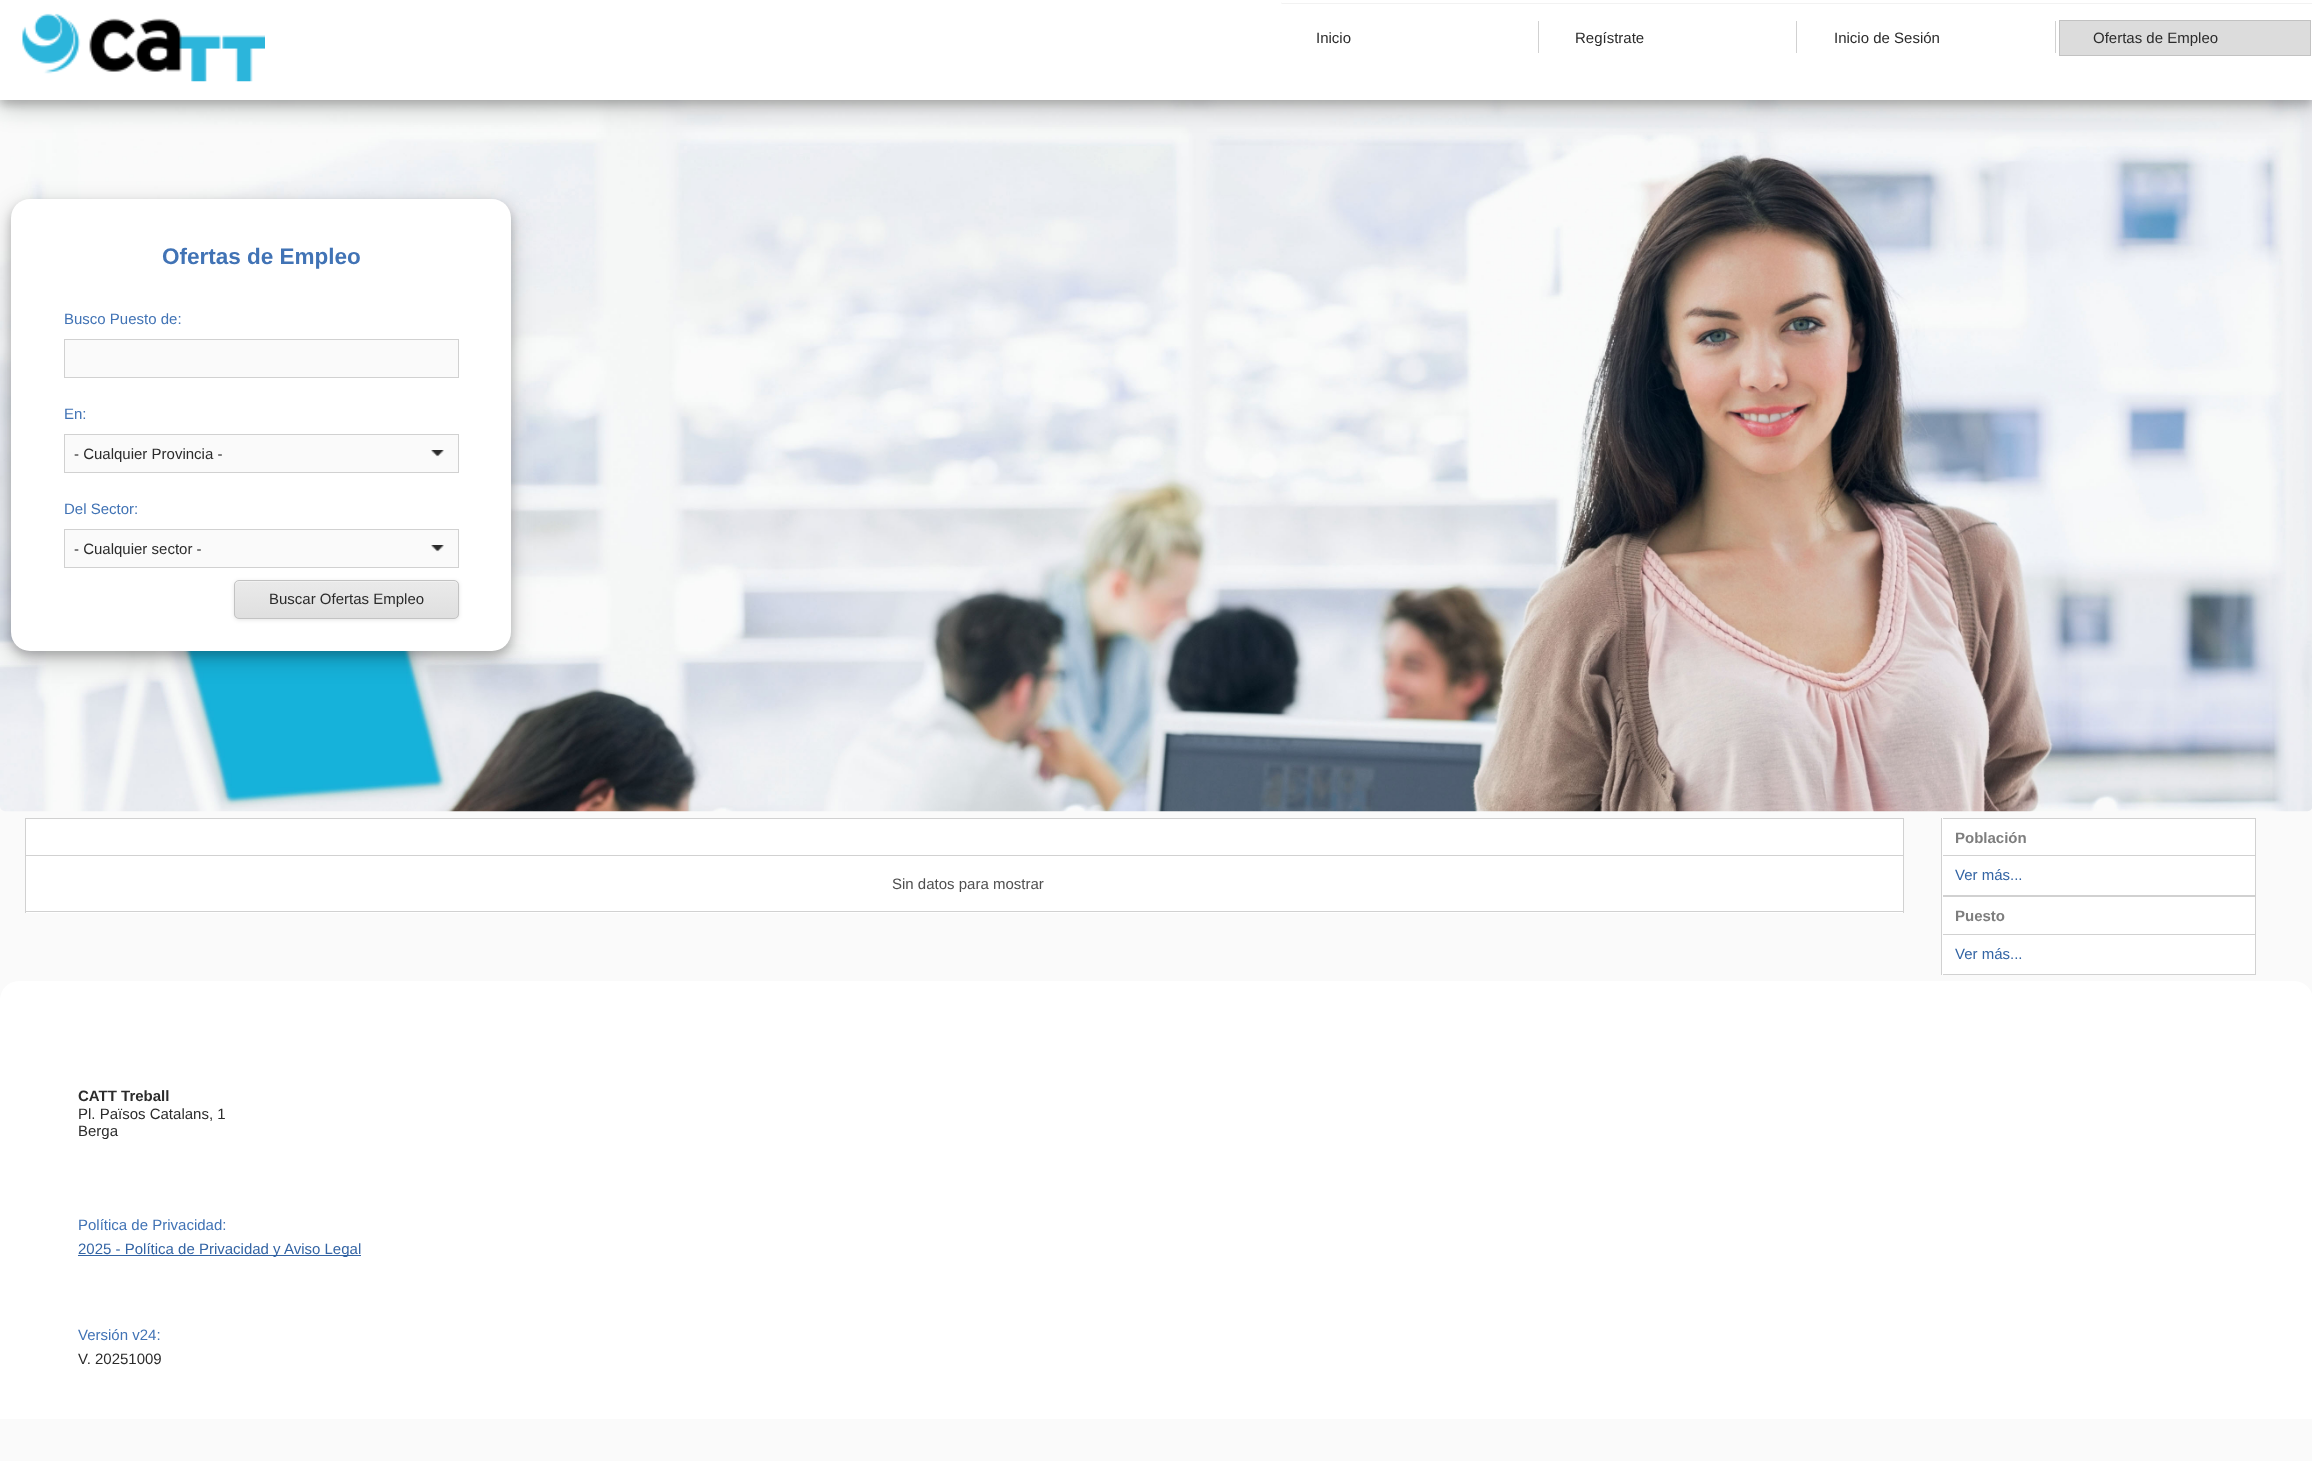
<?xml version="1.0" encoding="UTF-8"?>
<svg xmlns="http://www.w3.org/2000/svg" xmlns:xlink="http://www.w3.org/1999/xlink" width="2312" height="1461">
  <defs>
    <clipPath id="clip1"><rect x="234" y="580" width="225" height="39" rx="5" /></clipPath>
    <linearGradient id="g1" gradientUnits="userSpaceOnUse" x1="346" y1="581" x2="346" y2="618"><stop offset="0" stop-color="#eaeaea" /><stop offset="1" stop-color="#dfdfdf" /></linearGradient>
  </defs>
  <rect width="100%" height="100%" fill="#fafafa" />
  <image x="0" y="100" width="2312" height="712" xlink:href="image2.png" />
  <rect y="8" width="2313" height="100" fill="#000000" fill-opacity="0.19" filter="blur(12.5px)" />
  <rect y="5" width="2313" height="100" fill="#000000" fill-opacity="0.2" filter="blur(5px)" />
  <rect width="2312" height="100" fill="#ffffff" />
  <image x="22" y="13" width="243" height="69" xlink:href="image1.png" />
  <rect x="1281" y="1" width="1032" height="3" rx="1.5" fill="#000000" fill-opacity="0.05" filter="blur(0.5px)" />
  <rect x="1281" width="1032" height="3" rx="1.5" fill="#ffffff" />
  <rect x="1538" y="21" width="1" height="32" fill="#d1d1d1" />
  <rect x="1796" y="21" width="1" height="32" fill="#d1d1d1" />
  <rect x="2055" y="21" width="1" height="32" fill="#d1d1d1" />
  <rect x="2059.5" y="20.5" width="251" height="35" fill="#dcdcdc" stroke="#c2c2c2" />
  <rect x="11" y="206" width="500" height="453" rx="19" fill="#000000" fill-opacity="0.19" filter="blur(12.5px)" />
  <rect x="11" y="204" width="500" height="452" rx="19" fill="#000000" fill-opacity="0.2" filter="blur(5px)" />
  <rect x="11" y="199" width="500" height="452" rx="19" fill="#ffffff" />
  <rect x="64.5" y="339.5" width="394" height="38" fill="#fafafa" stroke="#d1d1d1" />
  <rect x="64.5" y="434.5" width="394" height="38" fill="#fafafa" stroke="#d1d1d1" />
  <image x="431" y="450" width="13" height="7" xlink:href="image3.png" />
  <rect x="64.5" y="529.5" width="394" height="38" fill="#fafafa" stroke="#d1d1d1" />
  <image x="431" y="545" width="13" height="7" xlink:href="image3.png" />
  <rect x="234" y="581" width="225" height="39" rx="5" fill="#000000" fill-opacity="0.1" filter="blur(2px)" />
  <g clip-path="url(#clip1)">
    <rect x="234" y="581" width="225" height="37" fill="url(#g1)" />
  </g>
  <path d="M 239 582 h 215 c 2 0 4 2 4 4 c 0 -3 -1 -5 -4 -5 h -215 c -3 0 -4 2 -4 5 c 0 -2 2 -4 4 -4 z" fill="#f1f1f1" />
  <rect x="234.5" y="580.5" width="224" height="38" rx="4.5" fill="none" stroke="#c3c3c3" />
  <rect x="26" y="819" width="1877" height="94" fill="#ffffff" />
  <rect x="1903" y="818" width="1" height="95" fill="#d1d1d1" />
  <rect x="25" y="818" width="1" height="95" fill="#d1d1d1" />
  <rect x="26" y="818" width="1877" height="1" fill="#d1d1d1" />
  <rect x="26" y="855" width="1877" height="1" fill="#d1d1d1" />
  <rect x="26" y="911" width="1877" height="1" fill="#d1d1d1" />
  <rect x="1942" y="818" width="313" height="157" fill="#ffffff" />
  <rect x="2255" y="818" width="1" height="157" fill="#d1d1d1" />
  <rect x="1941" y="818" width="1" height="157" fill="#d1d1d1" />
  <rect x="1943" y="818" width="312" height="1" fill="#d1d1d1" />
  <rect x="1943" y="855" width="312" height="1" fill="#d1d1d1" />
  <rect x="1943" y="895" width="312" height="2" fill="#d1d1d1" />
  <rect x="1943" y="934" width="312" height="1" fill="#d1d1d1" />
  <rect x="1943" y="974" width="312" height="1" fill="#d1d1d1" />
  <path d="M 19 981 h 2275 c 10.5 0 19 8.5 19 19 v 419 h -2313 v -419 c 0 -10.5 8.5 -19 19 -19 z" fill="#ffffff" />
  <rect x="78" y="1255" width="283" height="1" fill="#3364a4" />
  <text x="1316" y="43" style="font-family: Liberation Sans; font-size: 15px; fill: #2b2b2b">Inicio</text>
  <text x="1575" y="43" style="font-family: Liberation Sans; font-size: 15px; fill: #2b2b2b">Regístrate</text>
  <text x="1834" y="43" style="font-family: Liberation Sans; font-size: 15px; fill: #2b2b2b">Inicio de Sesión</text>
  <text x="2093" y="43" style="font-family: Liberation Sans; font-size: 15px; fill: #2b2b2b">Ofertas de Empleo</text>
  <text x="162" y="264" style="font-family: Liberation Sans; font-size: 22.5px; font-weight: bold; fill: #4173b5">Ofertas de Empleo</text>
  <text x="64" y="324" style="font-family: Liberation Sans; font-size: 15px; fill: #4173b5">Busco Puesto de:</text>
  <text x="64" y="419" style="font-family: Liberation Sans; font-size: 15px; fill: #4173b5">En:</text>
  <text x="74" y="459" style="font-family: Liberation Sans; font-size: 15px; fill: #2b2b2b">- Cualquier Provincia -</text>
  <text x="64" y="514" style="font-family: Liberation Sans; font-size: 15px; fill: #4173b5">Del Sector:</text>
  <text x="74" y="554" style="font-family: Liberation Sans; font-size: 15px; fill: #2b2b2b">- Cualquier sector -</text>
  <text x="269" y="604" style="font-family: Liberation Sans; font-size: 15px; fill: #2b2b2b">Buscar Ofertas Empleo</text>
  <text x="892" y="889" style="font-family: Liberation Sans; font-size: 15px; fill: #4f4f4f">Sin datos para mostrar</text>
  <text x="1955" y="843" style="font-family: Liberation Sans; font-size: 15px; font-weight: bold; fill: #7e7e7e">Población</text>
  <text x="1955" y="880" style="font-family: Liberation Sans; font-size: 15px; fill: #3364a4">Ver más...</text>
  <text x="1955" y="921" style="font-family: Liberation Sans; font-size: 15px; font-weight: bold; fill: #7e7e7e">Puesto</text>
  <text x="1955" y="959" style="font-family: Liberation Sans; font-size: 15px; fill: #3364a4">Ver más...</text>
  <text x="78" y="1101" style="font-family: Liberation Sans; font-size: 15px; font-weight: bold; fill: #2b2b2b">CATT Treball</text>
  <text x="78" y="1119" style="font-family: Liberation Sans; font-size: 15px; fill: #2b2b2b">Pl. Països Catalans, 1</text>
  <text x="78" y="1136" style="font-family: Liberation Sans; font-size: 15px; fill: #2b2b2b">Berga</text>
  <text x="78" y="1230" style="font-family: Liberation Sans; font-size: 15px; fill: #4173b5">Política de Privacidad:</text>
  <text x="78" y="1254" style="font-family: Liberation Sans; font-size: 15px; fill: #3364a4">2025 - Política de Privacidad y Aviso Legal</text>
  <text x="78" y="1340" style="font-family: Liberation Sans; font-size: 15px; fill: #4173b5">Versión v24:</text>
  <text x="78" y="1364" style="font-family: Liberation Sans; font-size: 15px; fill: #2b2b2b">V. 20251009</text>
</svg>
